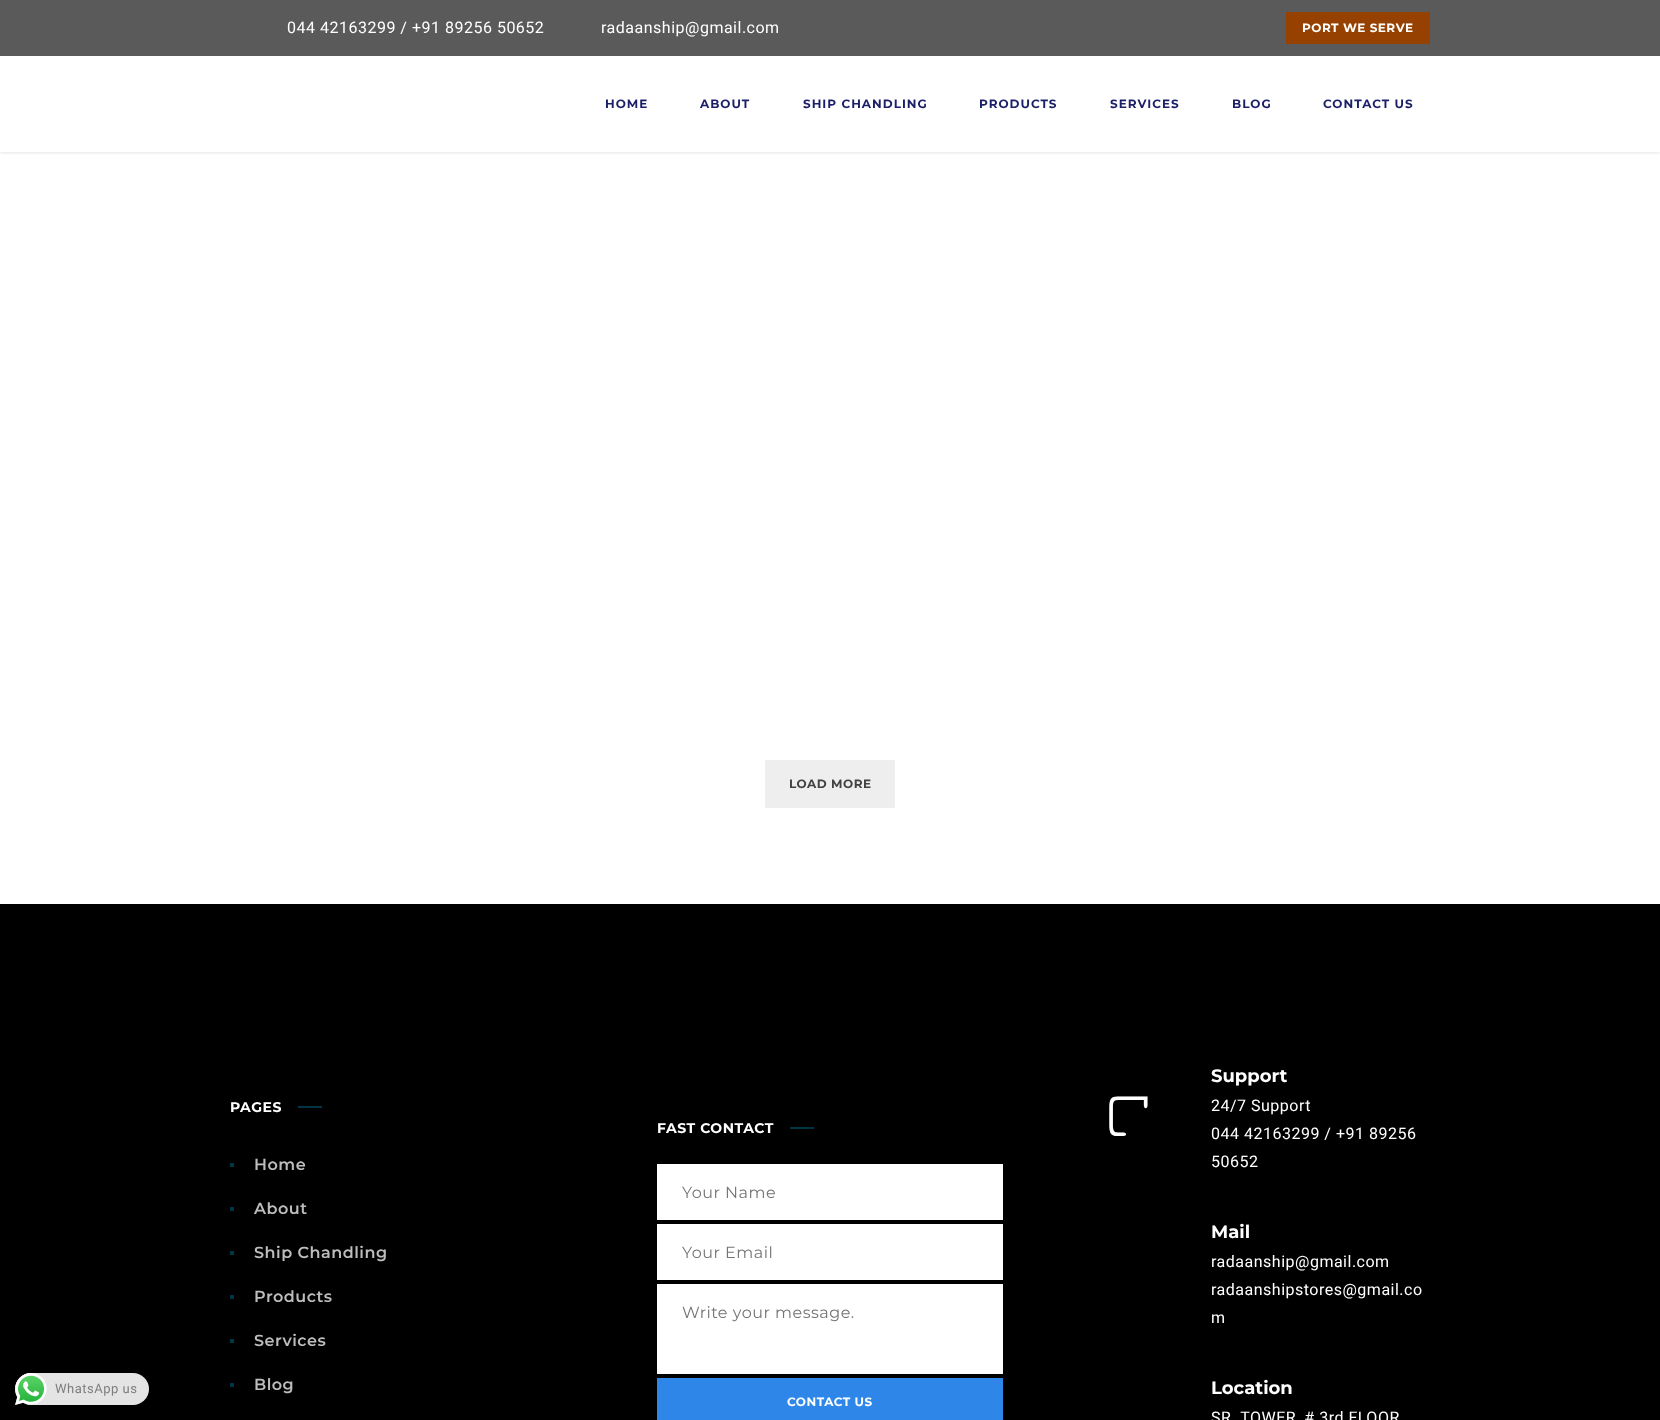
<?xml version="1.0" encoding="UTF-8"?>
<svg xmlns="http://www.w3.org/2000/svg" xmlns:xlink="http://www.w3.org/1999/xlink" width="1660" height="1420">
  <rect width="100%" height="100%" fill="#ffffff" />
  <rect y="904" width="1660" height="516" fill="#000000" />
  <rect x="15" y="1373" width="134" height="32" rx="16" fill="#e4e4e4" />
  <image x="15" y="1373" width="32" height="32" xlink:href="image1.png" />
  <rect y="1" width="1660" height="152" fill="#000000" fill-opacity="0.1" filter="blur(1.5px)" />
  <rect width="1660" height="56" fill="#5a5a5a" />
  <rect x="1286" y="12" width="144" height="32" fill="#964001" />
  <rect y="56" width="1660" height="96" fill="#ffffff" />
  <rect x="765" y="760" width="130" height="48" fill="#eeeeee" />
  <rect x="298" y="1106" width="24" height="2" fill="#003543" />
  <rect x="230" y="1163" width="4" height="4" fill="#003543" />
  <rect x="230" y="1207" width="4" height="4" fill="#003543" />
  <rect x="230" y="1251" width="4" height="4" fill="#003543" />
  <rect x="230" y="1295" width="4" height="4" fill="#003543" />
  <rect x="230" y="1339" width="4" height="4" fill="#003543" />
  <rect x="230" y="1383" width="4" height="4" fill="#003543" />
  <rect x="790" y="1127" width="24" height="2" fill="#003543" />
  <rect x="657" y="1164" width="346" height="56" fill="#ffffff" />
  <rect x="657" y="1224" width="346" height="56" fill="#ffffff" />
  <rect x="657" y="1284" width="346" height="90" fill="#ffffff" />
  <rect x="657" y="1378" width="346" height="42" fill="#2e87e8" />
  <text x="55" y="1393" style="font-family: Roboto; font-size: 13px; letter-spacing: 0.5px; fill: #7f7d7d">WhatsApp us</text>
  <text x="287" y="33" style="font-family: Roboto; font-size: 16px; letter-spacing: 0.5px; fill: #ffffff">044 42163299 / +91 89256 50652</text>
  <text x="601" y="33" style="font-family: Roboto; font-size: 16px; letter-spacing: 0.5px; fill: #ffffff">radaanship@gmail.com</text>
  <text x="1302" y="32" style="font-family: Montserrat; font-size: 12px; font-weight: bold; letter-spacing: 0.5px; fill: #ffffff">PORT WE SERVE</text>
  <text x="605" y="108" style="font-family: Montserrat; font-size: 12px; font-weight: bold; letter-spacing: 1px; fill: #1b1f67">HOME</text>
  <text x="700" y="108" style="font-family: Montserrat; font-size: 12px; font-weight: bold; letter-spacing: 1px; fill: #1b1f67">ABOUT</text>
  <text x="803" y="108" style="font-family: Montserrat; font-size: 12px; font-weight: bold; letter-spacing: 1px; fill: #1b1f67">SHIP CHANDLING</text>
  <text x="979" y="108" style="font-family: Montserrat; font-size: 12px; font-weight: bold; letter-spacing: 1px; fill: #1b1f67">PRODUCTS</text>
  <text x="1110" y="108" style="font-family: Montserrat; font-size: 12px; font-weight: bold; letter-spacing: 1px; fill: #1b1f67">SERVICES</text>
  <text x="1232" y="108" style="font-family: Montserrat; font-size: 12px; font-weight: bold; letter-spacing: 1px; fill: #1b1f67">BLOG</text>
  <text x="1323" y="108" style="font-family: Montserrat; font-size: 12px; font-weight: bold; letter-spacing: 1px; fill: #1b1f67">CONTACT US</text>
  <text x="789" y="788" style="font-family: Montserrat; font-size: 12px; font-weight: bold; letter-spacing: 0.5px; fill: #424242">LOAD MORE</text>
  <text x="230" y="1112" style="font-family: Montserrat; font-size: 14px; font-weight: bold; letter-spacing: 0.5px; fill: #ffffff">PAGES</text>
  <text x="254" y="1170" style="font-family: Montserrat; font-size: 16px; font-weight: 600; letter-spacing: 0.5px; fill: #bdbdbd">Home</text>
  <text x="254" y="1214" style="font-family: Montserrat; font-size: 16px; font-weight: 600; letter-spacing: 0.5px; fill: #bdbdbd">About</text>
  <text x="254" y="1258" style="font-family: Montserrat; font-size: 16px; font-weight: 600; letter-spacing: 0.5px; fill: #bdbdbd">Ship Chandling</text>
  <text x="254" y="1302" style="font-family: Montserrat; font-size: 16px; font-weight: 600; letter-spacing: 0.5px; fill: #bdbdbd">Products</text>
  <text x="254" y="1346" style="font-family: Montserrat; font-size: 16px; font-weight: 600; letter-spacing: 0.5px; fill: #bdbdbd">Services</text>
  <text x="254" y="1390" style="font-family: Montserrat; font-size: 16px; font-weight: 600; letter-spacing: 0.5px; fill: #bdbdbd">Blog</text>
  <text x="657" y="1133" style="font-family: Montserrat; font-size: 14px; font-weight: bold; letter-spacing: 0.5px; fill: #ffffff">FAST CONTACT</text>
  <text x="682" y="1198" style="font-family: Montserrat; font-size: 16px; letter-spacing: 0.5px; fill: #757575">Your Name</text>
  <text x="682" y="1258" style="font-family: Montserrat; font-size: 16px; letter-spacing: 0.5px; fill: #757575">Your Email</text>
  <text x="682" y="1318" style="font-family: Montserrat; font-size: 16px; letter-spacing: 0.5px; fill: #757575">Write your message.</text>
  <text x="787" y="1406" style="font-family: Montserrat; font-size: 12px; font-weight: bold; letter-spacing: 0.5px; fill: #ffffff">CONTACT US</text>
  <text x="1102" y="1136" style="font-family: FreeMono; font-size: 88px; letter-spacing: 0.5px; fill: #ffffff">꤅</text>
  <text x="1211" y="1082" style="font-family: Montserrat; font-size: 18px; font-weight: bold; fill: #ffffff">Support</text>
  <text x="1211" y="1111" style="font-family: Roboto; font-size: 16px; letter-spacing: 0.5px; fill: #ffffff">24/7 Support</text>
  <text x="1211" y="1139" style="font-family: Roboto; font-size: 16px; letter-spacing: 0.5px; fill: #ffffff">044 42163299 / +91 89256</text>
  <text x="1211" y="1167" style="font-family: Roboto; font-size: 16px; letter-spacing: 0.5px; fill: #ffffff">50652</text>
  <text x="1211" y="1238" style="font-family: Montserrat; font-size: 18px; font-weight: bold; fill: #ffffff">Mail</text>
  <text x="1211" y="1267" style="font-family: Roboto; font-size: 16px; letter-spacing: 0.5px; fill: #ffffff">radaanship@gmail.com</text>
  <text x="1211" y="1295" style="font-family: Roboto; font-size: 16px; letter-spacing: 0.5px; fill: #ffffff">radaanshipstores@gmail.co</text>
  <text x="1211" y="1323" style="font-family: Roboto; font-size: 16px; letter-spacing: 0.5px; fill: #ffffff">m</text>
  <text x="1211" y="1394" style="font-family: Montserrat; font-size: 18px; font-weight: bold; fill: #ffffff">Location</text>
  <text x="1211" y="1423" style="font-family: Roboto; font-size: 16px; letter-spacing: 0.5px; fill: #ffffff">SR. TOWER, # 3rd FLOOR</text>
</svg>
